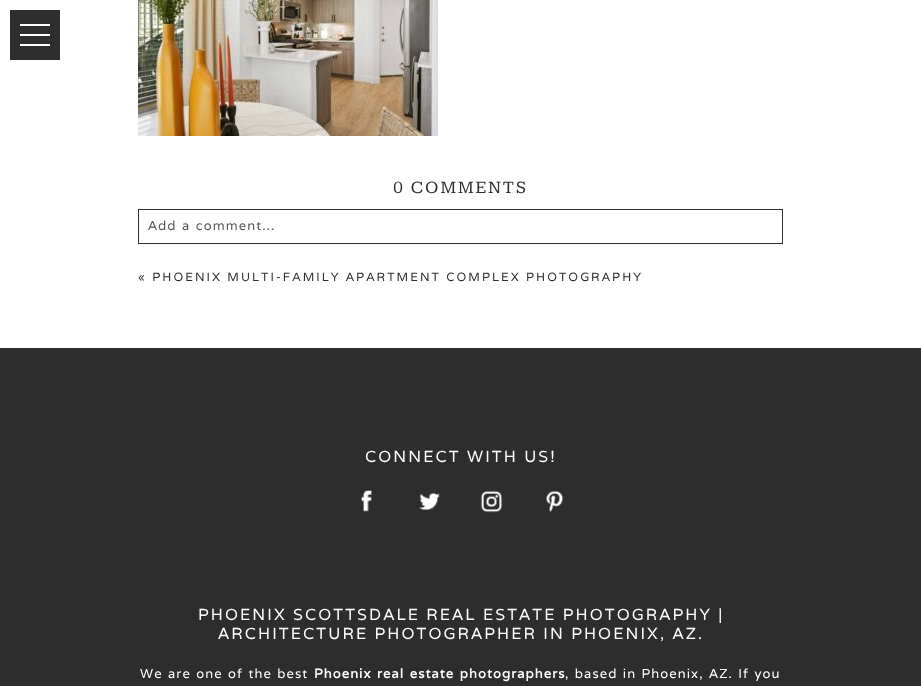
<?xml version="1.0" encoding="UTF-8"?>
<svg xmlns="http://www.w3.org/2000/svg" xmlns:xlink="http://www.w3.org/1999/xlink" width="921" height="686">
  <rect width="100%" height="100%" fill="#ffffff" />
  <rect x="10" y="10" width="50" height="50" fill="#2d2d2d" />
  <rect x="20" y="24" width="30" height="2" fill="#ffffff" />
  <rect x="20" y="34" width="30" height="2" fill="#ffffff" />
  <rect x="20" y="44" width="30" height="2" fill="#ffffff" />
  <image x="138" y="0" width="300" height="136" xlink:href="image1.png" />
  <rect x="138.5" y="209.5" width="644" height="34" fill="none" stroke="#2f2f2d" />
  <rect y="348" width="921" height="338" fill="#2d2d2d" />
  <image x="361" y="490" width="11" height="22" xlink:href="image2.png" />
  <image x="419" y="492" width="21" height="19" xlink:href="image3.png" />
  <image x="480" y="490" width="23" height="23" xlink:href="image4.png" />
  <image x="545" y="490" width="19" height="23" xlink:href="image5.png" />
  <text x="393" y="193" style="font-family: Kameron; font-size: 18px; letter-spacing: 2px; fill: #2d2d2d">0 COMMENTS</text>
  <text x="148" y="230" word-spacing="1" style="font-family: Varela; font-size: 13px; letter-spacing: 1.05px; fill: #575757">Add a comment...</text>
  <text x="138" y="281" style="font-family: Varela; font-size: 12px; letter-spacing: 2.05px; fill: #2d2d2d">« PHOENIX MULTI-FAMILY APARTMENT COMPLEX PHOTOGRAPHY</text>
  <text x="365" y="462" style="font-family: Varela; font-size: 16px; letter-spacing: 2.1px; fill: #ffffff">CONNECT WITH US!</text>
  <text x="198" y="620" style="font-family: Varela; font-size: 16px; letter-spacing: 2.1px; fill: #ffffff">PHOENIX SCOTTSDALE REAL ESTATE PHOTOGRAPHY |</text>
  <text x="218" y="639" style="font-family: Varela; font-size: 16px; letter-spacing: 2.1px; fill: #ffffff">ARCHITECTURE PHOTOGRAPHER IN PHOENIX, AZ.</text>
  <text x="140" y="678" word-spacing="1" style="font-family: Varela; font-size: 13px; letter-spacing: 1.05px; fill: #ffffff">We are one of the best</text>
  <text x="314" y="678" word-spacing="1" style="font-family: Varela; font-size: 13px; font-weight: bold; letter-spacing: 1.05px; fill: #ffffff">Phoenix real estate photographers</text>
  <text x="565" y="678" word-spacing="1" style="font-family: Varela; font-size: 13px; letter-spacing: 1.05px; fill: #ffffff">, based in Phoenix, AZ. If you</text>
</svg>
